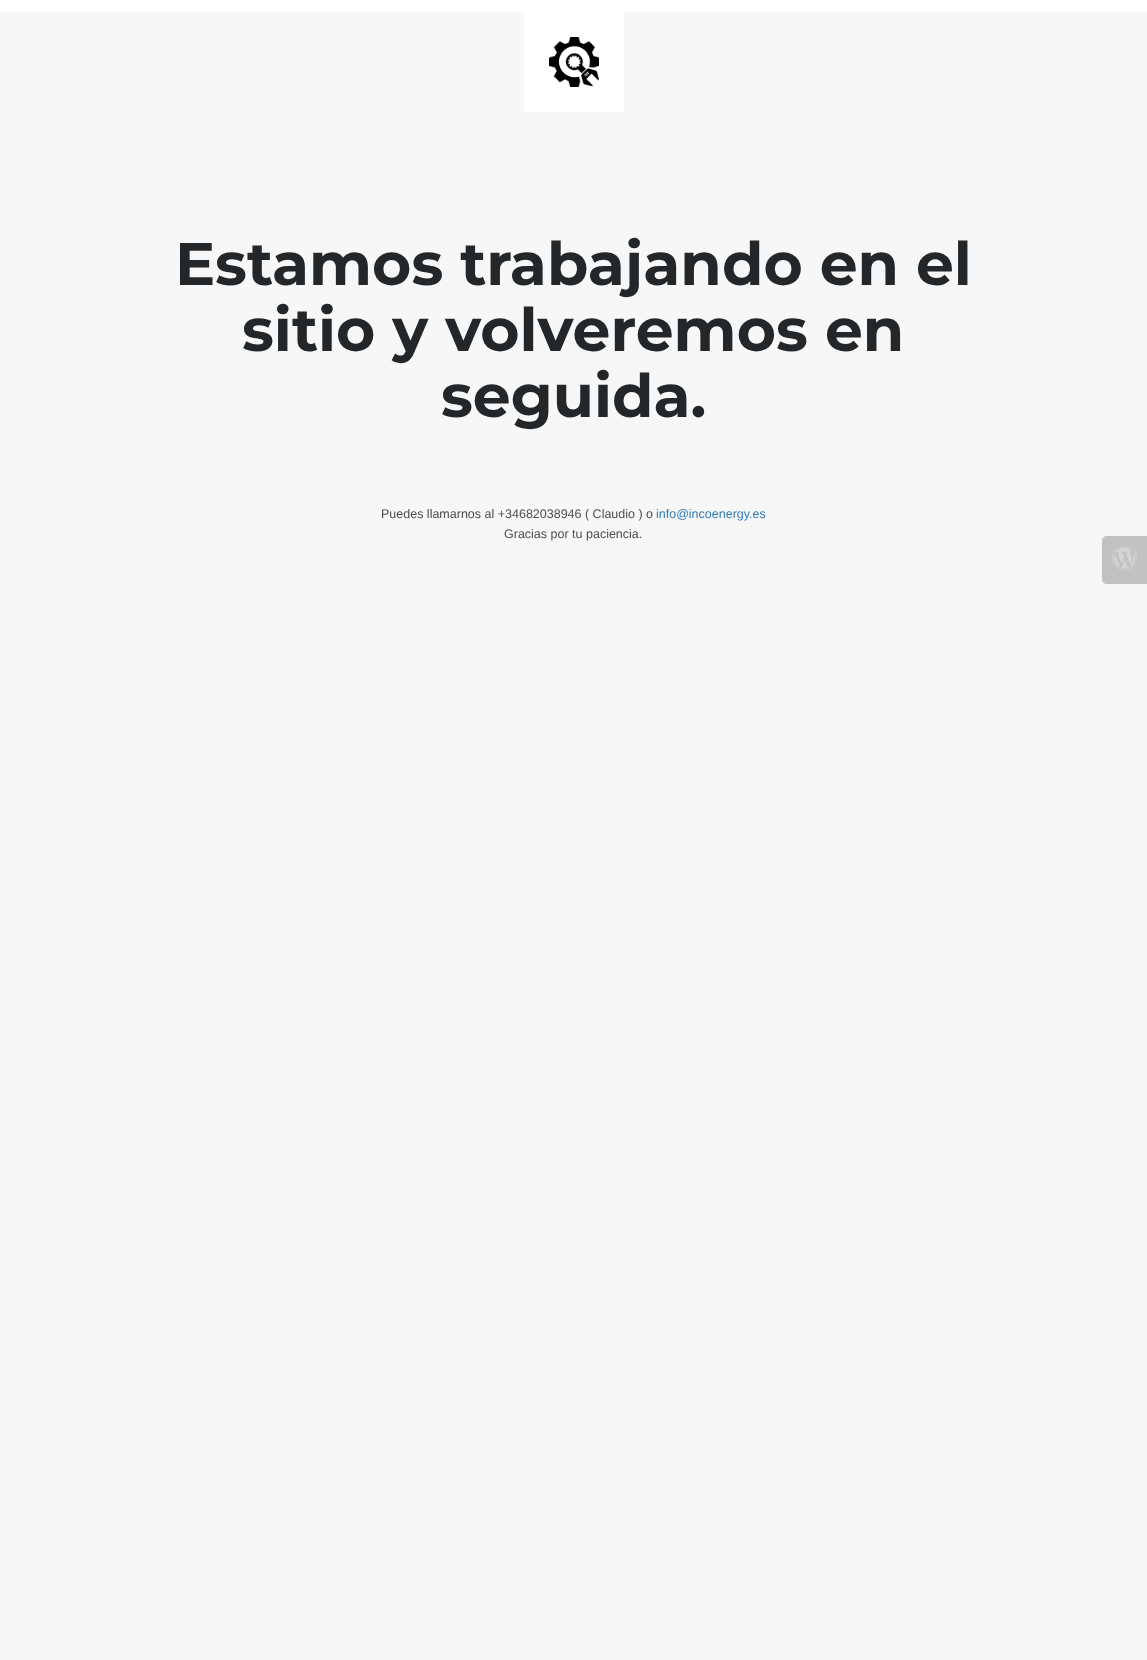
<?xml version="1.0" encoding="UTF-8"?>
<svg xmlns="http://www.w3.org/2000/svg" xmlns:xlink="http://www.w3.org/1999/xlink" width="1147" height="1660">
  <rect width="100%" height="100%" fill="#f7f7f7" />
  <rect width="1147" height="12" fill="#ffffff" />
  <rect x="524" y="12" width="100" height="100" fill="#ffffff" />
  <image x="549" y="37" width="50" height="50" xlink:href="image1.png" />
  <path d="M 1107 536 h 40 v 48 h -40 c -3 0 -5 -2 -5 -5 v -38 c 0 -3 2 -5 5 -5 z" fill="#c2c2c2" />
  <image x="1112" y="545" width="25" height="26" xlink:href="image2.png" />
  <text x="175" y="285" style="font-family: Montserrat; font-size: 60px; font-weight: bold; fill: #23272a">Estamos trabajando en el</text>
  <text x="242" y="351" style="font-family: Montserrat; font-size: 60px; font-weight: bold; fill: #23272a">sitio y volveremos en</text>
  <text x="441" y="417" style="font-family: Montserrat; font-size: 60px; font-weight: bold; fill: #23272a">seguida.</text>
  <text x="381" y="518" style="font-family: Liberation Sans; font-size: 12.5px; fill: #4d4d4d">Puedes llamarnos al +34682038946 ( Claudio ) o</text>
  <text x="656" y="518" style="font-family: Liberation Sans; font-size: 12.5px; fill: #337ab7">info@incoenergy.es</text>
  <text x="504" y="538" style="font-family: Liberation Sans; font-size: 12.5px; fill: #4d4d4d">Gracias por tu paciencia.</text>
</svg>
